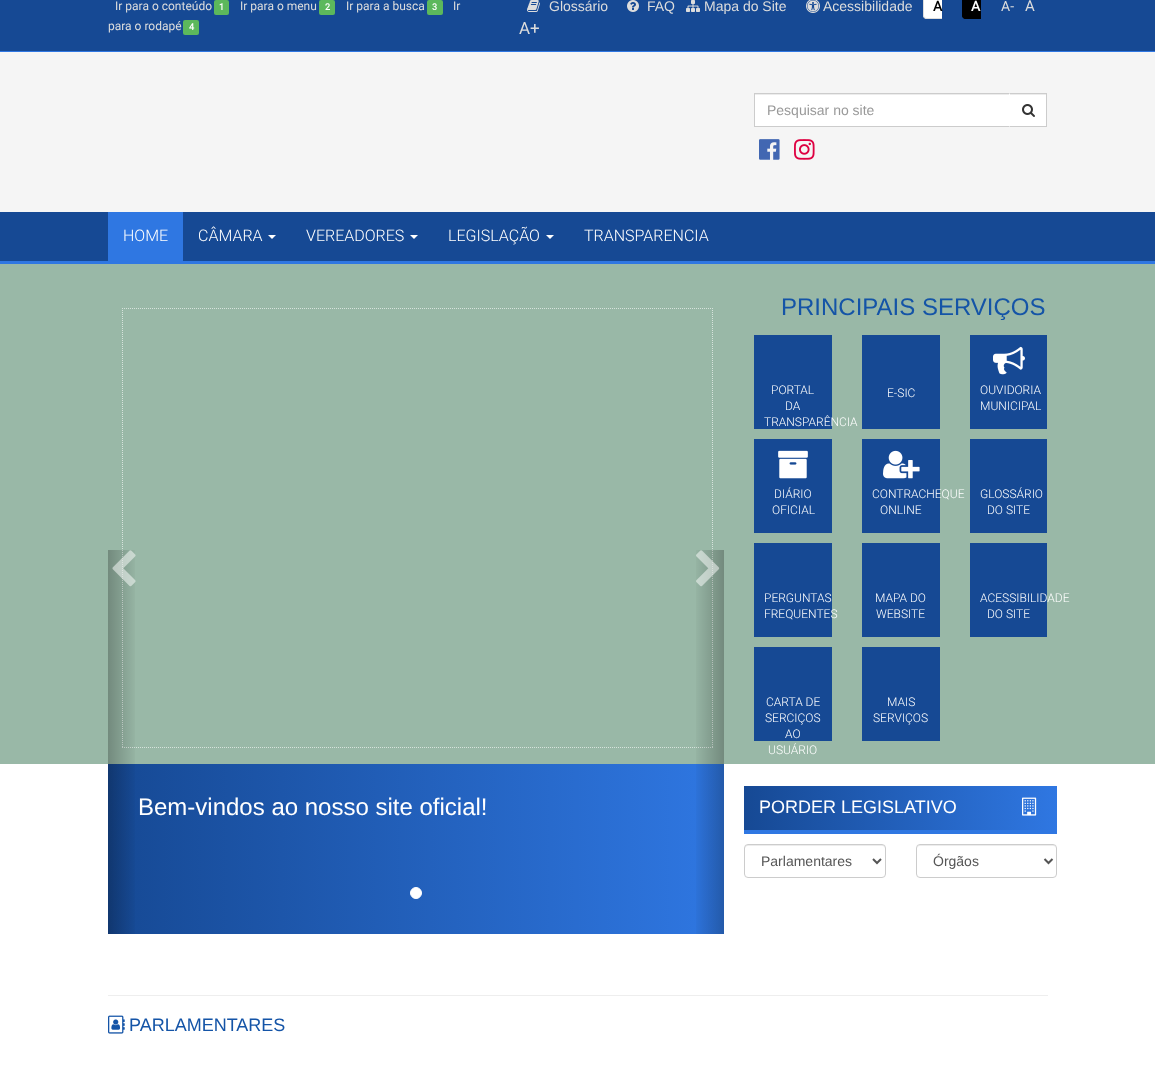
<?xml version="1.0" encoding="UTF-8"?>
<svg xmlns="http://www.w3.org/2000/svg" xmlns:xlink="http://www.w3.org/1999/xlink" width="1155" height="1077">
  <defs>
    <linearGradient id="g1" gradientUnits="userSpaceOnUse" x1="108" y1="849" x2="724" y2="849"><stop offset="0" stop-color="#164994" /><stop offset="1" stop-color="#2f77e2" /></linearGradient>
    <linearGradient id="g2" gradientUnits="userSpaceOnUse" x1="108" y1="742" x2="138" y2="742"><stop offset="0" stop-color="#000000" stop-opacity="0.25" /><stop offset="1" stop-color="#000000" stop-opacity="0" /></linearGradient>
    <linearGradient id="g3" gradientUnits="userSpaceOnUse" x1="693" y1="742" x2="724" y2="742"><stop offset="0" stop-color="#000000" stop-opacity="0" /><stop offset="1" stop-color="#000000" stop-opacity="0.25" /></linearGradient>
    <linearGradient id="g4" gradientUnits="userSpaceOnUse" x1="744" y1="808" x2="1057" y2="808"><stop offset="0" stop-color="#164994" /><stop offset="1" stop-color="#2f77e2" /></linearGradient>
  </defs>
  <rect width="100%" height="100%" fill="#ffffff" />
  <rect y="52" width="1155" height="160" fill="#f5f5f5" />
  <rect width="1155" height="51" fill="#164994" />
  <rect y="51" width="1155" height="1" fill="#2f77e2" />
  <rect x="214" width="15" height="15" rx="2" fill="#5cb85c" />
  <rect x="319" width="16" height="15" rx="2" fill="#5cb85c" />
  <rect x="427" width="16" height="15" rx="2" fill="#5cb85c" />
  <rect x="183" y="20" width="16" height="15" rx="2" fill="#5cb85c" />
  <image x="527" y="0" width="13" height="12" xlink:href="image1.png" />
  <image x="627" y="0" width="12" height="12" xlink:href="image2.png" />
  <image x="686" y="0" width="14" height="12" xlink:href="image3.png" />
  <image x="806" y="0" width="14" height="13" xlink:href="image4.png" />
  <path d="M 927 -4 h 15 v 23 h -15 c -2 0 -4 -2 -4 -4 v -15 c 0 -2 2 -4 4 -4 z" fill="#ffffff" />
  <path d="M 926.5 -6 h 15.5 v 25 h -15.5 c -2 0 -3.5 -1.5 -3.5 -3.5 v -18 c 0 -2 1.5 -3.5 3.5 -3.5 z m 0 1 h 15.5 v 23 h -15.5 c -1.5 0 -2.5 -1 -2.5 -2.5 v -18 c 0 -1.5 1 -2.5 2.5 -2.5 z" fill="#dddddd" fill-rule="evenodd" />
  <path d="M 966 -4 h 15 v 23 h -15 c -2 0 -4 -2 -4 -4 v -15 c 0 -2 2 -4 4 -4 z" fill="#000000" />
  <path d="M 965.5 -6 h 15.5 v 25 h -15.5 c -2 0 -3.5 -1.5 -3.5 -3.5 v -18 c 0 -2 1.5 -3.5 3.5 -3.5 z m 0 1 h 15.5 v 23 h -15.5 c -1.5 0 -2.5 -1 -2.5 -2.5 v -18 c 0 -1.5 1 -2.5 2.5 -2.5 z" fill="#000000" fill-rule="evenodd" />
  <rect x="755" y="95" width="254" height="31" fill="#ffffff" />
  <rect x="755" y="94" width="254" height="1" fill="#ececec" />
  <rect x="754" y="93" width="255" height="1" fill="#cccccc" />
  <rect x="754" y="126" width="255" height="1" fill="#cccccc" />
  <rect x="754" y="93" width="1" height="34" fill="#cccccc" />
  <rect x="1009" y="93" width="37" height="34" fill="#ffffff" />
  <rect x="1010" y="94" width="36" height="1" fill="#ececec" />
  <path d="M 1009 93 h 38 l -1 1 h -36 z" fill="#cccccc" />
  <rect x="1046" y="93" width="1" height="34" fill="#cccccc" />
  <path d="M 1047 127 h -38 l 1 -1 h 36 z" fill="#cccccc" />
  <image x="1022" y="104" width="13" height="13" xlink:href="image5.png" />
  <image x="759" y="139" width="21" height="21" xlink:href="image6.png" />
  <image x="794" y="139" width="21" height="21" xlink:href="image7.png" />
  <rect y="212" width="1155" height="49" fill="#164994" />
  <rect y="261" width="1155" height="3" fill="#2f77e2" />
  <rect x="108" y="212" width="75" height="49" fill="#2f77e2" />
  <path d="M 268 235 h 8 l -4 4 z" fill="#ffffff" />
  <path d="M 410 235 h 8 l -4 4 z" fill="#ffffff" />
  <path d="M 546 235 h 8 l -4 4 z" fill="#ffffff" />
  <rect y="264" width="1155" height="500" fill="#99b8a7" />
  <path d="M 122 747.5 h 591" fill="none" stroke="#d6e3dc" stroke-dasharray="1 1" />
  <path d="M 122 308.5 h 591" fill="none" stroke="#d6e3dc" stroke-dasharray="1 1" />
  <path d="M 122.5 308 v 440" fill="none" stroke="#d6e3dc" stroke-dasharray="1 1" />
  <rect x="108" y="764" width="616" height="170" fill="url(#g1)" />
  <rect x="108" y="550" width="27" height="384" fill="url(#g2)" />
  <image x="112" y="550" width="24" height="37" xlink:href="image8.png" />
  <path d="M 712.5 308 v 440" fill="none" stroke="#d6e3dc" stroke-dasharray="1 1" />
  <circle cx="416" cy="893" r="5.5" fill="#ffffff" stroke="#ffffff" />
  <rect x="696" y="550" width="28" height="384" fill="url(#g3)" />
  <image x="696" y="550" width="24" height="37" xlink:href="image9.png" />
  <rect x="754" y="335" width="78" height="94" fill="#164994" />
  <rect x="862" y="335" width="78" height="94" fill="#164994" />
  <rect x="970" y="335" width="77" height="94" fill="#164994" />
  <image x="993" y="346" width="32" height="29" xlink:href="image10.png" />
  <rect x="754" y="439" width="78" height="94" fill="#164994" />
  <image x="778" y="450" width="30" height="29" xlink:href="image11.png" />
  <rect x="862" y="439" width="78" height="94" fill="#164994" />
  <image x="883" y="450" width="37" height="29" xlink:href="image12.png" />
  <rect x="970" y="439" width="77" height="94" fill="#164994" />
  <rect x="754" y="543" width="78" height="94" fill="#164994" />
  <rect x="862" y="543" width="78" height="94" fill="#164994" />
  <rect x="970" y="543" width="77" height="94" fill="#164994" />
  <rect x="754" y="647" width="78" height="94" fill="#164994" />
  <rect x="862" y="647" width="78" height="94" fill="#164994" />
  <rect x="744" y="786" width="313" height="44" fill="url(#g4)" />
  <rect x="744" y="830" width="313" height="4" fill="#2f77e2" />
  <image x="1022" y="797" width="15" height="19" xlink:href="image13.png" />
  <path d="M 748 846 h 134 c 2 0 3 1 3 3 v -1 c 0 -2 -1 -3 -3 -3 h -134 c -2 0 -3 1 -3 3 v 1 c 0 -2 1 -3 3 -3 z" fill="#ececec" />
  <rect x="744.5" y="844.5" width="141" height="33" rx="3.5" fill="none" stroke="#cccccc" />
  <path d="M 873 859 l 4 4 l 4 -4" fill="none" stroke="#555555" stroke-width="2" />
  <path d="M 920 846 h 133 c 2 0 3 1 3 3 c 0 -2 -1 -4 -3 -4 h -133 c -2 0 -3 2 -3 4 c 0 -2 1 -3 3 -3 z" fill="#ececec" />
  <rect x="916.5" y="844.5" width="140" height="33" rx="3.5" fill="none" stroke="#cccccc" />
  <path d="M 1044.5 859 l 4 4 l 4 -4" fill="none" stroke="#555555" stroke-width="2" />
  <rect x="108" y="995" width="940" height="1" fill="#eeeeee" />
  <image x="108" y="1015" width="17" height="19" xlink:href="image14.png" />
  <text x="115" y="10" style="font-family: Roboto; font-size: 12px; fill: #dddddd">Ir para o conteúdo</text>
  <text x="219" y="10" style="font-family: Roboto; font-size: 9px; font-weight: bold; fill: #ffffff">1</text>
  <text x="240" y="10" style="font-family: Roboto; font-size: 12px; fill: #dddddd">Ir para o menu</text>
  <text x="325" y="10" style="font-family: Roboto; font-size: 9px; font-weight: bold; fill: #ffffff">2</text>
  <text x="346" y="10" style="font-family: Roboto; font-size: 12px; fill: #dddddd">Ir para a busca</text>
  <text x="432" y="10" style="font-family: Roboto; font-size: 9px; font-weight: bold; fill: #ffffff">3</text>
  <text x="453" y="10" style="font-family: Roboto; font-size: 12px; fill: #dddddd">Ir</text>
  <text x="108" y="30" style="font-family: Roboto; font-size: 12px; fill: #dddddd">para o rodapé</text>
  <text x="189" y="30" style="font-family: Roboto; font-size: 9px; font-weight: bold; fill: #ffffff">4</text>
  <text x="549" y="11" style="font-family: Liberation Sans; font-size: 14px; fill: #dddddd">Glossário</text>
  <text x="647" y="11" style="font-family: Liberation Sans; font-size: 14px; fill: #dddddd">FAQ</text>
  <text x="704" y="11" style="font-family: Liberation Sans; font-size: 14px; fill: #dddddd">Mapa do Site</text>
  <text x="823" y="11" style="font-family: Liberation Sans; font-size: 14px; fill: #dddddd">Acessibilidade</text>
  <text x="933" y="11" style="font-family: Roboto; font-size: 14px; font-weight: bold; fill: #000000">A</text>
  <text x="971" y="11" style="font-family: Roboto; font-size: 14px; font-weight: bold; fill: #ffffff">A</text>
  <text x="1001" y="11" style="font-family: Roboto; font-size: 14px; fill: #dddddd">A-</text>
  <text x="1025" y="11" style="font-family: Roboto; font-size: 15px; fill: #dddddd">A</text>
  <text x="519" y="34" style="font-family: Roboto; font-size: 17px; fill: #dddddd">A+</text>
  <text x="767" y="115" style="font-family: Liberation Sans; font-size: 14px; fill: #999999">Pesquisar no site</text>
  <text x="123" y="241" style="font-family: Roboto; font-size: 16px; font-weight: 300; fill: #ffffff">HOME</text>
  <text x="198" y="241" style="font-family: Roboto; font-size: 16px; font-weight: 300; fill: #ffffff">CÂMARA</text>
  <text x="306" y="241" style="font-family: Roboto; font-size: 16px; font-weight: 300; fill: #ffffff">VEREADORES</text>
  <text x="448" y="241" style="font-family: Roboto; font-size: 16px; font-weight: 300; fill: #ffffff">LEGISLAÇÃO</text>
  <text x="584" y="241" style="font-family: Roboto; font-size: 16px; font-weight: 300; fill: #ffffff">TRANSPARENCIA</text>
  <text x="138" y="815" style="font-family: Liberation Sans; font-size: 24px; fill: #ffffff">Bem-vindos ao nosso site oficial!</text>
  <text x="781" y="315" style="font-family: Liberation Sans; font-size: 24px; fill: #1454a7">PRINCIPAIS SERVIÇOS</text>
  <text x="771" y="394" style="font-family: Roboto; font-size: 12px; font-weight: 300; fill: #ffffff">PORTAL</text>
  <text x="785" y="410" style="font-family: Roboto; font-size: 12px; font-weight: 300; fill: #ffffff">DA</text>
  <text x="764" y="426" style="font-family: Roboto; font-size: 12px; font-weight: 300; fill: #ffffff">TRANSPARÊNCIA</text>
  <text x="887" y="397" style="font-family: Roboto; font-size: 12px; font-weight: 300; fill: #ffffff">E-SIC</text>
  <text x="980" y="394" style="font-family: Roboto; font-size: 12px; font-weight: 300; fill: #ffffff">OUVIDORIA</text>
  <text x="980" y="410" style="font-family: Roboto; font-size: 12px; font-weight: 300; fill: #ffffff">MUNICIPAL</text>
  <text x="774" y="498" style="font-family: Roboto; font-size: 12px; font-weight: 300; fill: #ffffff">DIÁRIO</text>
  <text x="772" y="514" style="font-family: Roboto; font-size: 12px; font-weight: 300; fill: #ffffff">OFICIAL</text>
  <text x="872" y="498" style="font-family: Roboto; font-size: 12px; font-weight: 300; fill: #ffffff">CONTRACHEQUE</text>
  <text x="880" y="514" style="font-family: Roboto; font-size: 12px; font-weight: 300; fill: #ffffff">ONLINE</text>
  <text x="980" y="498" style="font-family: Roboto; font-size: 12px; font-weight: 300; fill: #ffffff">GLOSSÁRIO</text>
  <text x="987" y="514" style="font-family: Roboto; font-size: 12px; font-weight: 300; fill: #ffffff">DO SITE</text>
  <text x="764" y="602" style="font-family: Roboto; font-size: 12px; font-weight: 300; fill: #ffffff">PERGUNTAS</text>
  <text x="764" y="618" style="font-family: Roboto; font-size: 12px; font-weight: 300; fill: #ffffff">FREQUENTES</text>
  <text x="875" y="602" style="font-family: Roboto; font-size: 12px; font-weight: 300; fill: #ffffff">MAPA DO</text>
  <text x="876" y="618" style="font-family: Roboto; font-size: 12px; font-weight: 300; fill: #ffffff">WEBSITE</text>
  <text x="980" y="602" style="font-family: Roboto; font-size: 12px; font-weight: 300; fill: #ffffff">ACESSIBILIDADE</text>
  <text x="987" y="618" style="font-family: Roboto; font-size: 12px; font-weight: 300; fill: #ffffff">DO SITE</text>
  <text x="766" y="706" style="font-family: Roboto; font-size: 12px; font-weight: 300; fill: #ffffff">CARTA DE</text>
  <text x="765" y="722" style="font-family: Roboto; font-size: 12px; font-weight: 300; fill: #ffffff">SERCIÇOS</text>
  <text x="785" y="738" style="font-family: Roboto; font-size: 12px; font-weight: 300; fill: #ffffff">AO</text>
  <text x="768" y="754" style="font-family: Roboto; font-size: 12px; font-weight: 300; fill: #ffffff">USUÁRIO</text>
  <text x="887" y="706" style="font-family: Roboto; font-size: 12px; font-weight: 300; fill: #ffffff">MAIS</text>
  <text x="873" y="722" style="font-family: Roboto; font-size: 12px; font-weight: 300; fill: #ffffff">SERVIÇOS</text>
  <text x="759" y="813" style="font-family: Liberation Sans; font-size: 18px; fill: #ffffff">PORDER LEGISLATIVO</text>
  <text x="761" y="866" style="font-family: Liberation Sans; font-size: 14px; fill: #555555">Parlamentares</text>
  <text x="933" y="866" style="font-family: Liberation Sans; font-size: 14px; fill: #555555">Órgãos</text>
  <text x="129" y="1031" style="font-family: Liberation Sans; font-size: 18px; fill: #1454a7">PARLAMENTARES</text>
</svg>
